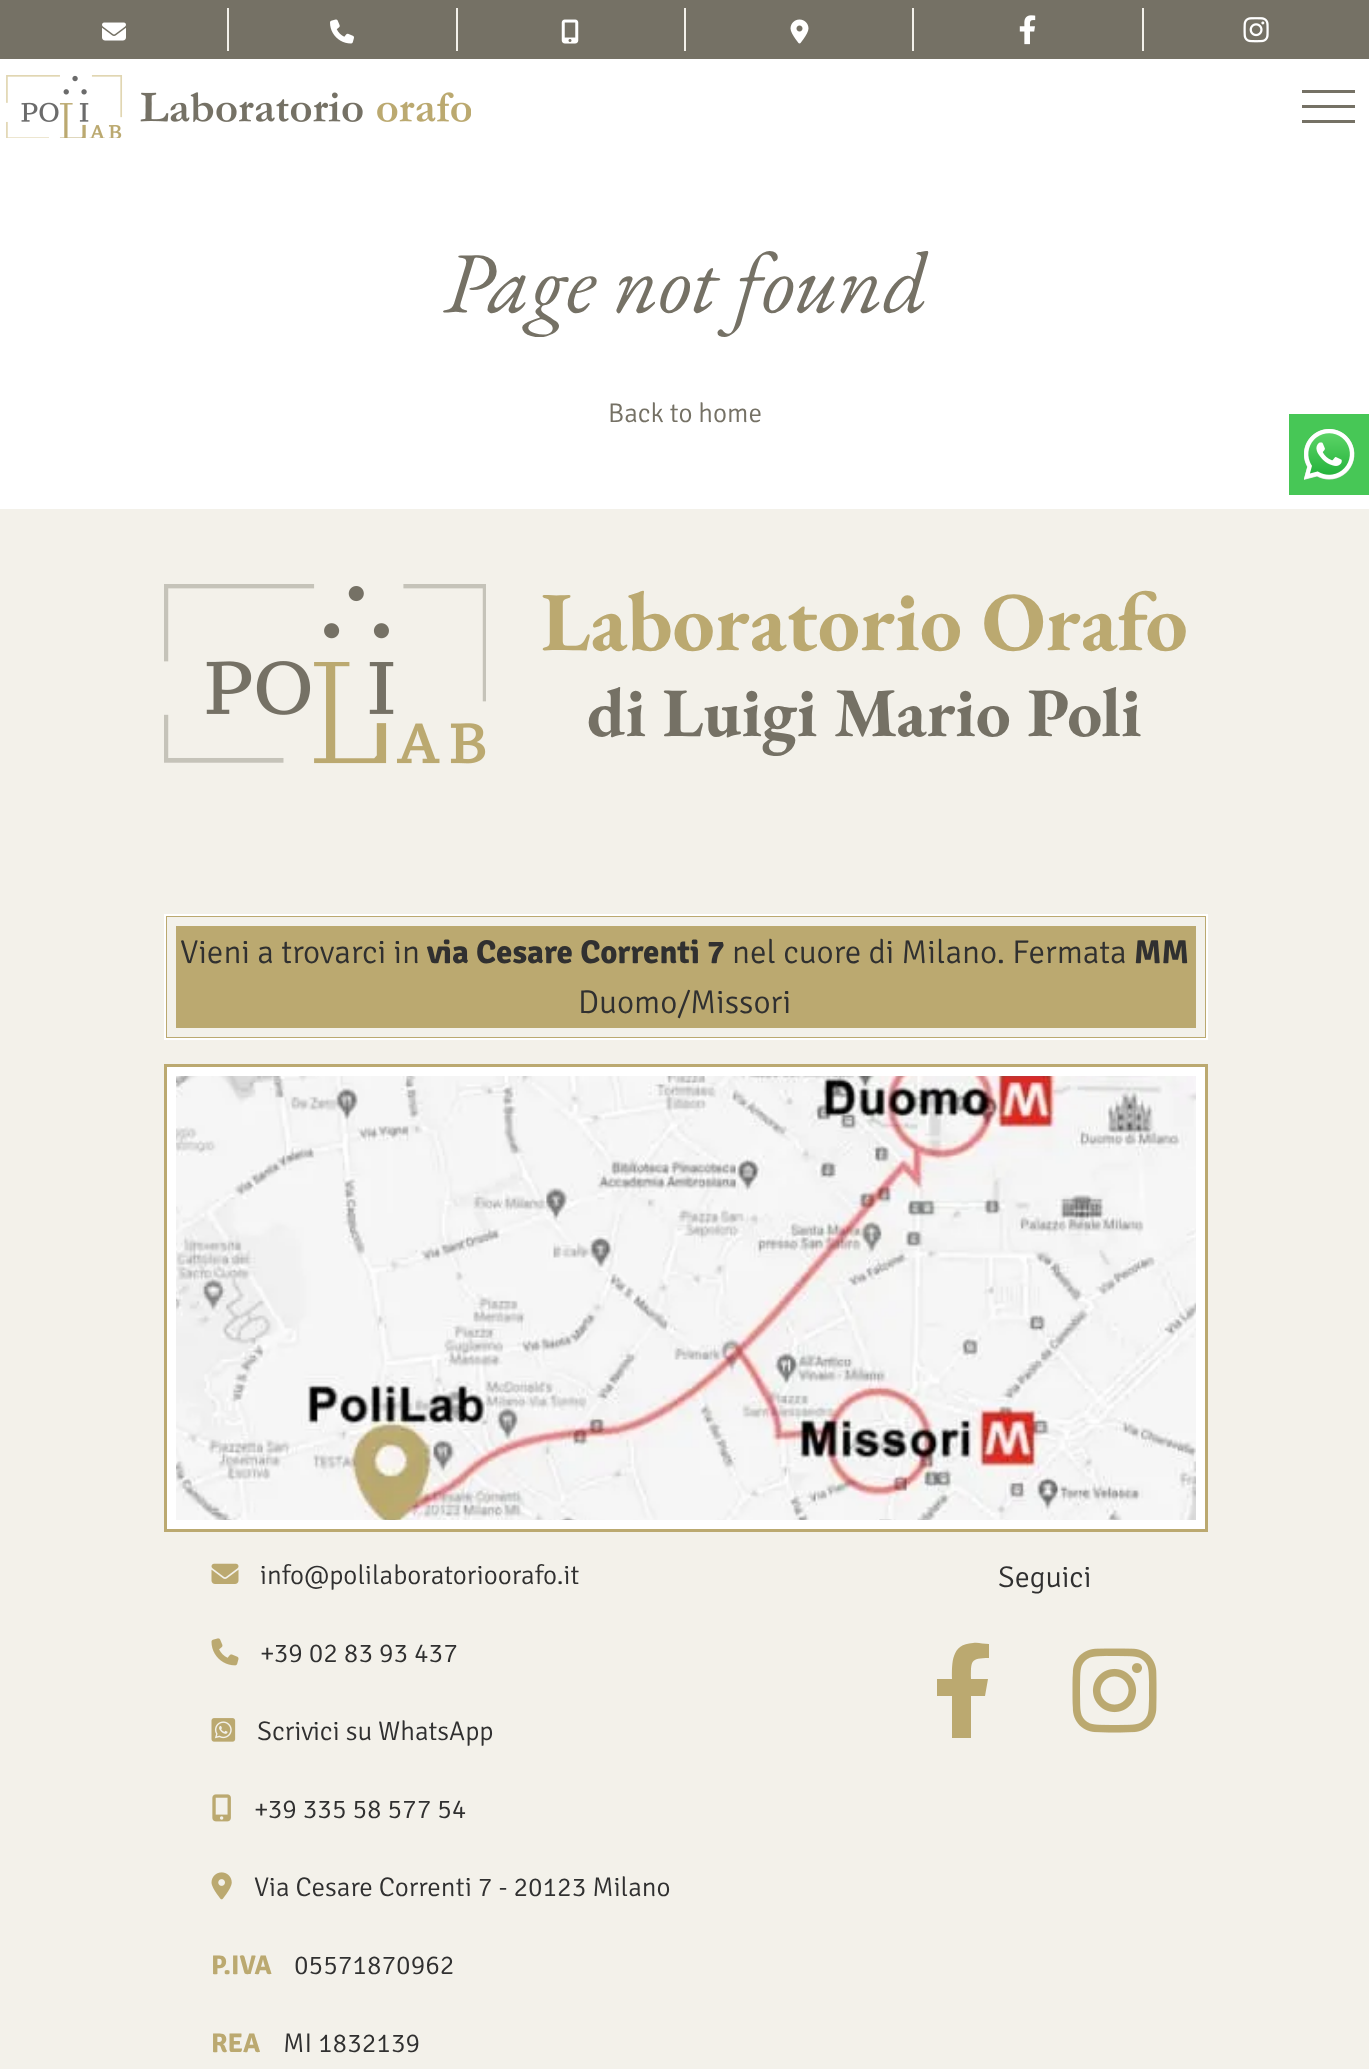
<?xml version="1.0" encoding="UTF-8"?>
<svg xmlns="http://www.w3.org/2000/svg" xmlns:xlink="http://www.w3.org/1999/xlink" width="1369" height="2069">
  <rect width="100%" height="100%" fill="#ffffff" />
  <rect width="1369" height="59" fill="#757165" />
  <rect x="227" y="8" width="2" height="43" fill="#f3f1ea" />
  <image x="102" y="22" width="24" height="19" xlink:href="image1.png" />
  <rect x="456" y="8" width="2" height="43" fill="#f3f1ea" />
  <image x="330" y="19" width="24" height="25" xlink:href="image2.png" />
  <rect x="684" y="8" width="2" height="43" fill="#f3f1ea" />
  <image x="561" y="19" width="18" height="25" xlink:href="image3.png" />
  <rect x="912" y="8" width="2" height="43" fill="#f3f1ea" />
  <image x="790" y="19" width="19" height="25" xlink:href="image4.png" />
  <rect x="1142" y="8" width="2" height="43" fill="#f3f1ea" />
  <image x="1019" y="15" width="17" height="30" xlink:href="image5.png" />
  <image x="1243" y="17" width="26" height="26" xlink:href="image6.png" />
  <image x="6" y="75" width="465" height="63" xlink:href="image7.png" />
  <rect x="1302" y="90" width="53" height="3" fill="#757165" />
  <rect x="1302" y="105" width="53" height="3" fill="#757165" />
  <rect x="1302" y="120" width="53" height="3" fill="#757165" />
  <rect y="509" width="1369" height="1560" fill="#f3f1ea" />
  <rect x="1289" y="414" width="80" height="81" fill="#47c756" />
  <image x="1304" y="429" width="51" height="51" xlink:href="image8.png" />
  <image x="164" y="584" width="322" height="180" xlink:href="image9.png" />
  <rect x="165" y="915" width="1042" height="124" fill="#bba970" stroke="#ffffff" stroke-width="2" />
  <rect x="171.5" y="921.5" width="1029" height="111" fill="none" stroke="#f3f1ea" stroke-width="9" />
  <rect x="166.5" y="1066.5" width="1039" height="463" fill="none" stroke="#bba970" stroke-width="5" />
  <image x="176" y="1076" width="1020" height="444" xlink:href="image10.png" />
  <rect x="171.5" y="1071.5" width="1029" height="453" fill="none" stroke="#ffffff" stroke-width="9" />
  <image x="211" y="1563" width="28" height="21" xlink:href="image11.png" />
  <image x="211" y="1638" width="28" height="28" xlink:href="image12.png" />
  <image x="211" y="1718" width="25" height="24" xlink:href="image13.png" />
  <image x="212" y="1794" width="19" height="28" xlink:href="image14.png" />
  <image x="211" y="1872" width="21" height="28" xlink:href="image15.png" />
  <path d="M 985 1696 l 3 -17 h -17 c 0 -18 -1 -21 18 -21 v -14 c -6 0 -11 -2 -16 -1 c -22 1 -21 20 -21 36 h -15 v 17 h 15 v 42 h 19 v -42 z" fill="#bba970" />
  <image x="1072" y="1648" width="85" height="85" xlink:href="image16.png" />
  <text x="443" y="312" style="font-family: EB Garamond; font-size: 86.5px; font-style: italic; fill: #757165">Page not found</text>
  <text x="608" y="422" style="font-family: Signika; font-size: 27px; font-weight: 300; fill: #757165">Back to home</text>
  <text x="541" y="650" style="font-family: EB Garamond; font-size: 84px; font-weight: bold; fill: #bba970">Laboratorio Orafo</text>
  <text x="587" y="736" style="font-family: EB Garamond; font-size: 69.5px; font-weight: bold; fill: #757165">di Luigi Mario Poli</text>
  <text x="180" y="963" style="font-family: Signika; font-size: 33px; font-weight: 300; fill: #303030">Vieni a trovarci in</text>
  <text x="427" y="963" style="font-family: Signika; font-size: 33px; font-weight: bold; fill: #303030">via Cesare Correnti 7</text>
  <text x="732" y="963" style="font-family: Signika; font-size: 33px; font-weight: 300; fill: #303030">nel cuore di Milano. Fermata</text>
  <text x="1134" y="963" style="font-family: Signika; font-size: 33px; font-weight: bold; fill: #303030">MM</text>
  <text x="578" y="1013" style="font-family: Signika; font-size: 33px; font-weight: 300; fill: #303030">Duomo/Missori</text>
  <text x="260" y="1584" style="font-family: Signika; font-size: 27px; font-weight: 300; fill: #303030">info@polilaboratorioorafo.it</text>
  <text x="260" y="1662" style="font-family: Signika; font-size: 27px; font-weight: 300; fill: #303030">+39 02 83 93 437</text>
  <text x="257" y="1740" style="font-family: Signika; font-size: 27px; font-weight: 300; fill: #303030">Scrivici su WhatsApp</text>
  <text x="254" y="1818" style="font-family: Signika; font-size: 27px; font-weight: 300; fill: #303030">+39 335 58 577 54</text>
  <text x="254" y="1896" style="font-family: Signika; font-size: 27px; font-weight: 300; fill: #303030">Via Cesare Correnti 7 - 20123 Milano</text>
  <text x="211" y="1974" style="font-family: Signika; font-size: 27px; font-weight: bold; fill: #bba970">P.IVA</text>
  <text x="294" y="1974" style="font-family: Signika; font-size: 27px; font-weight: 300; fill: #303030">05571870962</text>
  <text x="211" y="2052" style="font-family: Signika; font-size: 27px; font-weight: bold; fill: #bba970">REA</text>
  <text x="283" y="2052" style="font-family: Signika; font-size: 27px; font-weight: 300; fill: #303030">MI 1832139</text>
  <text x="998" y="1587" style="font-family: Signika; font-size: 30px; font-weight: 300; fill: #303030">Seguici</text>
</svg>
